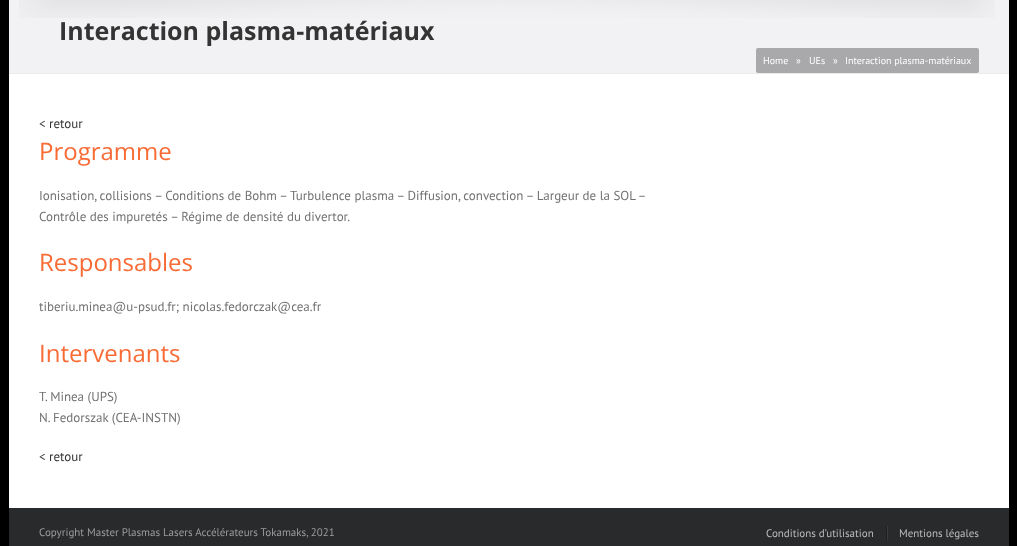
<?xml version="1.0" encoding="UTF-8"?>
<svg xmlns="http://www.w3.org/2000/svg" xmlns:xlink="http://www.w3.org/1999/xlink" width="1017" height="546">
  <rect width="100%" height="100%" fill="#000000" />
  <rect x="9" y="74" width="1000" height="434" fill="#ffffff" />
  <rect x="9" width="1000" height="73" fill="#f2f2f4" />
  <rect x="9" y="73" width="1000" height="1" fill="#ebebeb" />
  <image x="19" y="0" width="976" height="18" xlink:href="image1.png" />
  <rect x="756" y="48" width="223" height="25" rx="2" fill="#a9a9ab" />
  <rect x="9" y="508" width="1000" height="38" fill="#282a2b" />
  <rect x="887" y="526" width="1" height="14" fill="#3a3c3d" />
  <rect x="886" y="526" width="1" height="14" fill="#1e1e1e" />
  <text x="59" y="40" style="font-family: Open Sans; font-size: 25px; font-weight: bold; fill: #343434">Interaction plasma-matériaux</text>
  <text x="763" y="64" style="font-family: PT Sans; font-size: 10px; fill: #ffffff">Home</text>
  <text x="796" y="64" style="font-family: PT Sans; font-size: 10px; fill: #ffffff">»</text>
  <text x="809" y="64" style="font-family: PT Sans; font-size: 10px; fill: #ffffff">UEs</text>
  <text x="833" y="64" style="font-family: PT Sans; font-size: 10px; fill: #ffffff">»</text>
  <text x="845" y="64" style="font-family: PT Sans; font-size: 10px; fill: #ffffff">Interaction plasma-matériaux</text>
  <text x="39" y="128" style="font-family: PT Sans; font-size: 13px; fill: #343434">&lt; retour</text>
  <text x="39" y="160" style="font-family: Open Sans; font-size: 24px; fill: #f86b35">Programme</text>
  <text x="39" y="200" style="font-family: PT Sans; font-size: 13px; fill: #727272">Ionisation, collisions – Conditions de Bohm – Turbulence plasma – Diffusion, convection – Largeur de la SOL –</text>
  <text x="39" y="221" style="font-family: PT Sans; font-size: 13px; fill: #727272">Contrôle des impuretés – Régime de densité du divertor.</text>
  <text x="39" y="271" style="font-family: Open Sans; font-size: 24px; fill: #f86b35">Responsables</text>
  <text x="39" y="311" style="font-family: PT Sans; font-size: 13px; fill: #727272">tiberiu.minea@u-psud.fr; nicolas.fedorczak@cea.fr</text>
  <text x="39" y="362" style="font-family: Open Sans; font-size: 24px; fill: #f86b35">Intervenants</text>
  <text x="39" y="401" style="font-family: PT Sans; font-size: 13px; fill: #727272">T. Minea (UPS)</text>
  <text x="39" y="422" style="font-family: PT Sans; font-size: 13px; fill: #727272">N. Fedorszak (CEA-INSTN)</text>
  <text x="39" y="461" style="font-family: PT Sans; font-size: 13px; fill: #343434">&lt; retour</text>
  <text x="39" y="536" style="font-family: PT Sans; font-size: 11px; fill: #9c9c9c">Copyright Master Plasmas Lasers Accélérateurs Tokamaks, 2021</text>
  <text x="766" y="537" style="font-family: PT Sans; font-size: 11px; fill: #bcbcbc">Conditions d’utilisation</text>
  <text x="899" y="537" style="font-family: PT Sans; font-size: 11px; fill: #bcbcbc">Mentions légales</text>
</svg>
